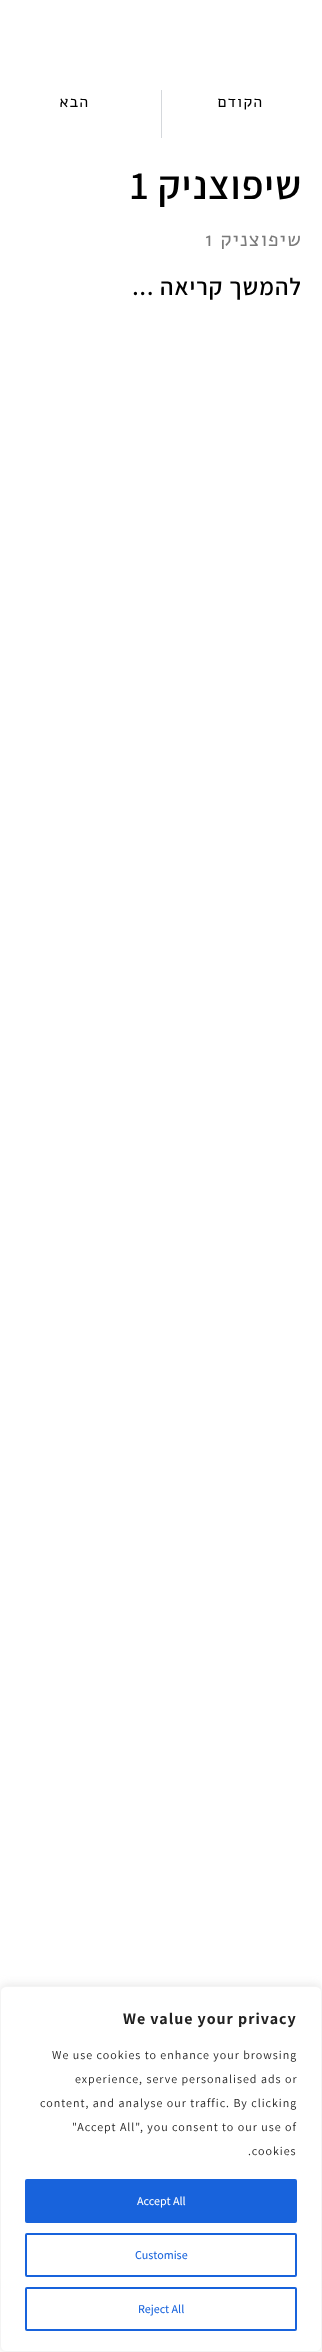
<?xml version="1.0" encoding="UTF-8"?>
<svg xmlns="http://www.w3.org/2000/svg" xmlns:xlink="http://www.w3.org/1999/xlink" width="322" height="2352">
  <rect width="100%" height="100%" fill="#ffffff" />
  <rect x="161" y="90" width="1" height="48" fill="#d5d8dc" />
  <rect y="1985" width="322" height="366" rx="6" fill="#acabab" fill-opacity="0.3" filter="blur(5px)" />
  <rect x="0.5" y="1986.5" width="321" height="365" rx="5.5" fill="#ffffff" stroke="#f4f4f4" />
  <rect x="26" y="2180" width="270" height="42" rx="1" fill="#1863dc" stroke="#1863dc" stroke-width="2" />
  <rect x="26" y="2234" width="270" height="42" rx="1" fill="none" stroke="#1863dc" stroke-width="2" />
  <rect x="26" y="2288" width="270" height="42" rx="1" fill="none" stroke="#1863dc" stroke-width="2" />
  <text x="89" y="107" style="font-family: Alef; font-size: 16px; letter-spacing: 1px; direction: rtl; fill: #000000">הבא</text>
  <text x="263" y="107" style="font-family: Alef; font-size: 16px; letter-spacing: 1px; direction: rtl; fill: #000000">הקודם</text>
  <text x="130" y="199" style="font-family: Assistant; font-size: 40px; font-weight: 600; letter-spacing: 1px; fill: #000000">1</text>
  <text x="302" y="199" style="font-family: Assistant; font-size: 40px; font-weight: 600; letter-spacing: 1px; direction: rtl; fill: #000000">שיפוצניק</text>
  <text x="205" y="246" style="font-family: Alef; font-size: 20px; letter-spacing: 1px; fill: #7a7a7a">1</text>
  <text x="302" y="246" style="font-family: Alef; font-size: 20px; letter-spacing: 1px; direction: rtl; fill: #7a7a7a">שיפוצניק</text>
  <text x="302" y="295" style="font-family: Assistant; font-size: 24px; font-weight: 600; letter-spacing: 1px; direction: rtl; fill: #000000">להמשך קריאה ...</text>
  <text x="123" y="2024" style="font-family: Assistant; font-size: 16px; font-weight: bold; letter-spacing: 1px; fill: #212121">We value your privacy</text>
  <text x="52" y="2059" style="font-family: Assistant; font-size: 12px; font-weight: 200; letter-spacing: 1px; fill: #212121">We use cookies to enhance your browsing</text>
  <text x="75" y="2083" style="font-family: Assistant; font-size: 12px; font-weight: 200; letter-spacing: 1px; fill: #212121">experience, serve personalised ads or</text>
  <text x="40" y="2107" style="font-family: Assistant; font-size: 12px; font-weight: 200; letter-spacing: 1px; fill: #212121">content, and analyse our traffic. By clicking</text>
  <text x="72" y="2131" style="font-family: Assistant; font-size: 12px; font-weight: 200; letter-spacing: 1px; fill: #212121">"Accept All", you consent to our use of</text>
  <text x="248" y="2155" style="font-family: Assistant; font-size: 12px; font-weight: 200; letter-spacing: 1px; fill: #212121">.cookies</text>
  <text x="137" y="2205" style="font-family: Assistant; font-size: 12px; font-weight: 500; fill: #ffffff">Accept All</text>
  <text x="135" y="2259" style="font-family: Assistant; font-size: 12px; font-weight: 500; fill: #1863dc">Customise</text>
  <text x="138" y="2313" style="font-family: Assistant; font-size: 12px; font-weight: 500; fill: #1863dc">Reject All</text>
</svg>
